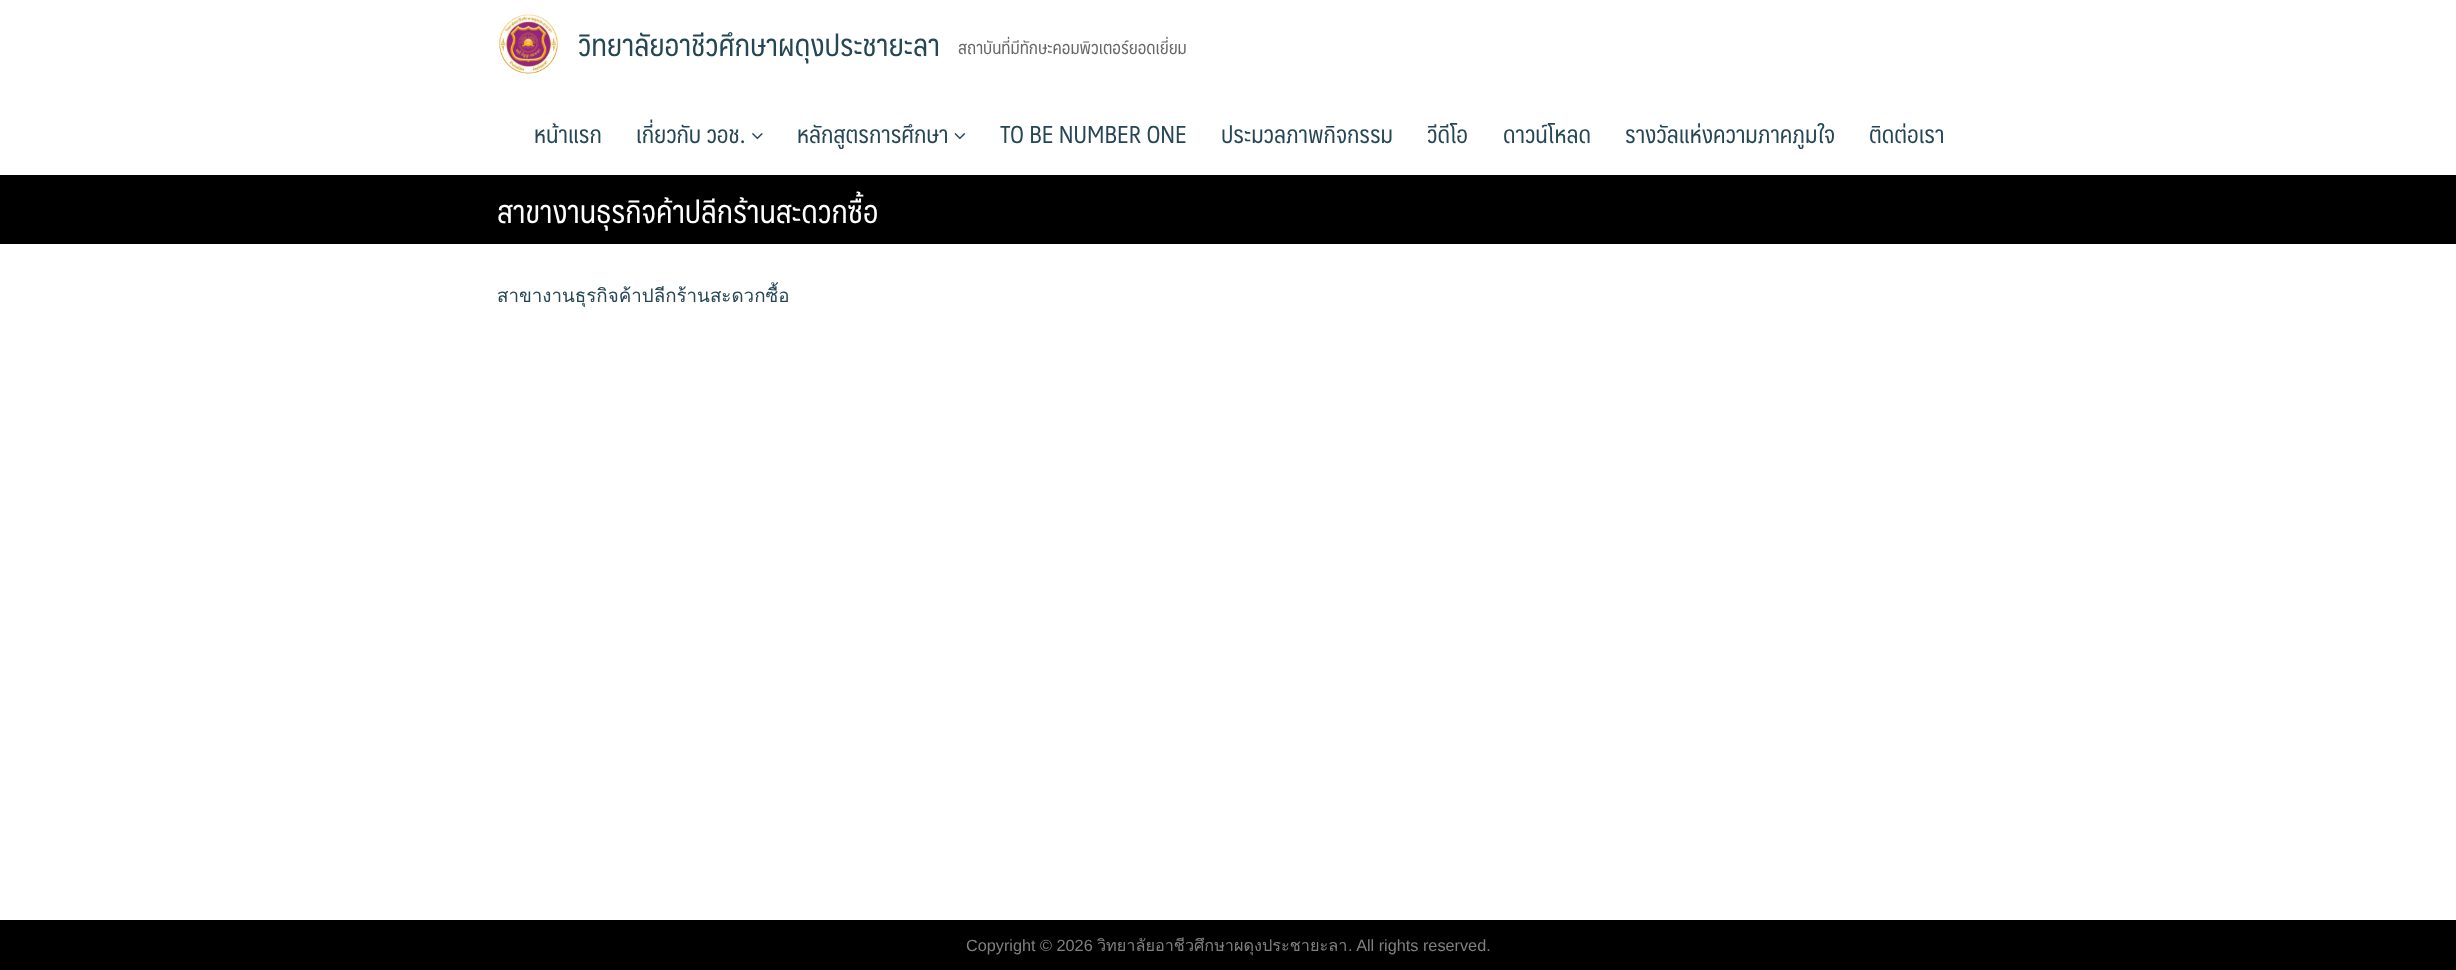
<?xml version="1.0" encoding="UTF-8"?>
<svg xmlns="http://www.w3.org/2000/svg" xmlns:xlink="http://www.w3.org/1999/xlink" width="2456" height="970">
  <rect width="100%" height="100%" fill="#ffffff" />
  <image x="499" y="14" width="59" height="60" xlink:href="image1.png" />
  <image x="752" y="133" width="11" height="7" xlink:href="image2.png" />
  <image x="954" y="133" width="12" height="7" xlink:href="image3.png" />
  <rect y="175" width="2456" height="69" fill="#000000" />
  <rect y="920" width="2456" height="50" fill="#000000" />
  <text x="578" y="56" style="font-family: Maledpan; font-size: 30px; fill: #254655">วิทยาลัยอาชีวศึกษาผดุงประชายะลา</text>
  <text x="958" y="54" style="font-family: Maledpan; font-size: 17.5px; fill: #666666">สถาบันที่มีทักษะคอมพิวเตอร์ยอดเยี่ยม</text>
  <text x="534" y="143" style="font-family: Maledpan; font-size: 23.75px; fill: #254655">หน้าแรก</text>
  <text x="636" y="143" style="font-family: Maledpan; font-size: 23.75px; fill: #254655">เกี่ยวกับ วอช.</text>
  <text x="797" y="143" style="font-family: Maledpan; font-size: 23.75px; fill: #254655">หลักสูตรการศึกษา</text>
  <text x="1000" y="143" style="font-family: Maledpan; font-size: 23.75px; fill: #254655">TO BE NUMBER ONE</text>
  <text x="1221" y="143" style="font-family: Maledpan; font-size: 23.75px; fill: #254655">ประมวลภาพกิจกรรม</text>
  <text x="1427" y="143" style="font-family: Maledpan; font-size: 23.75px; fill: #254655">วีดีโอ</text>
  <text x="1503" y="143" style="font-family: Maledpan; font-size: 23.75px; fill: #254655">ดาวน์โหลด</text>
  <text x="1625" y="143" style="font-family: Maledpan; font-size: 23.75px; fill: #254655">รางวัลแห่งความภาคภูมใจ</text>
  <text x="1869" y="143" style="font-family: Maledpan; font-size: 23.75px; fill: #254655">ติดต่อเรา</text>
  <text x="497" y="223" style="font-family: Maledpan; font-size: 31.25px; fill: #ffffff">สาขางานธุรกิจค้าปลีกร้านสะดวกซื้อ</text>
  <text x="497" y="302" style="font-family: Loma; font-size: 18.75px; fill: #254655">สาขางานธุรกิจค้าปลีกร้านสะดวกซื้อ</text>
  <text x="966" y="951" style="font-family: Liberation Sans; font-size: 16.25px; fill: #808080">Copyright © 2026</text>
  <text x="1097" y="951" style="font-family: Loma; font-size: 16.25px; fill: #808080">วิทยาลัยอาชีวศึกษาผดุงประชายะลา</text>
  <text x="1348" y="951" style="font-family: Liberation Sans; font-size: 16.25px; fill: #808080">. All rights reserved.</text>
</svg>
